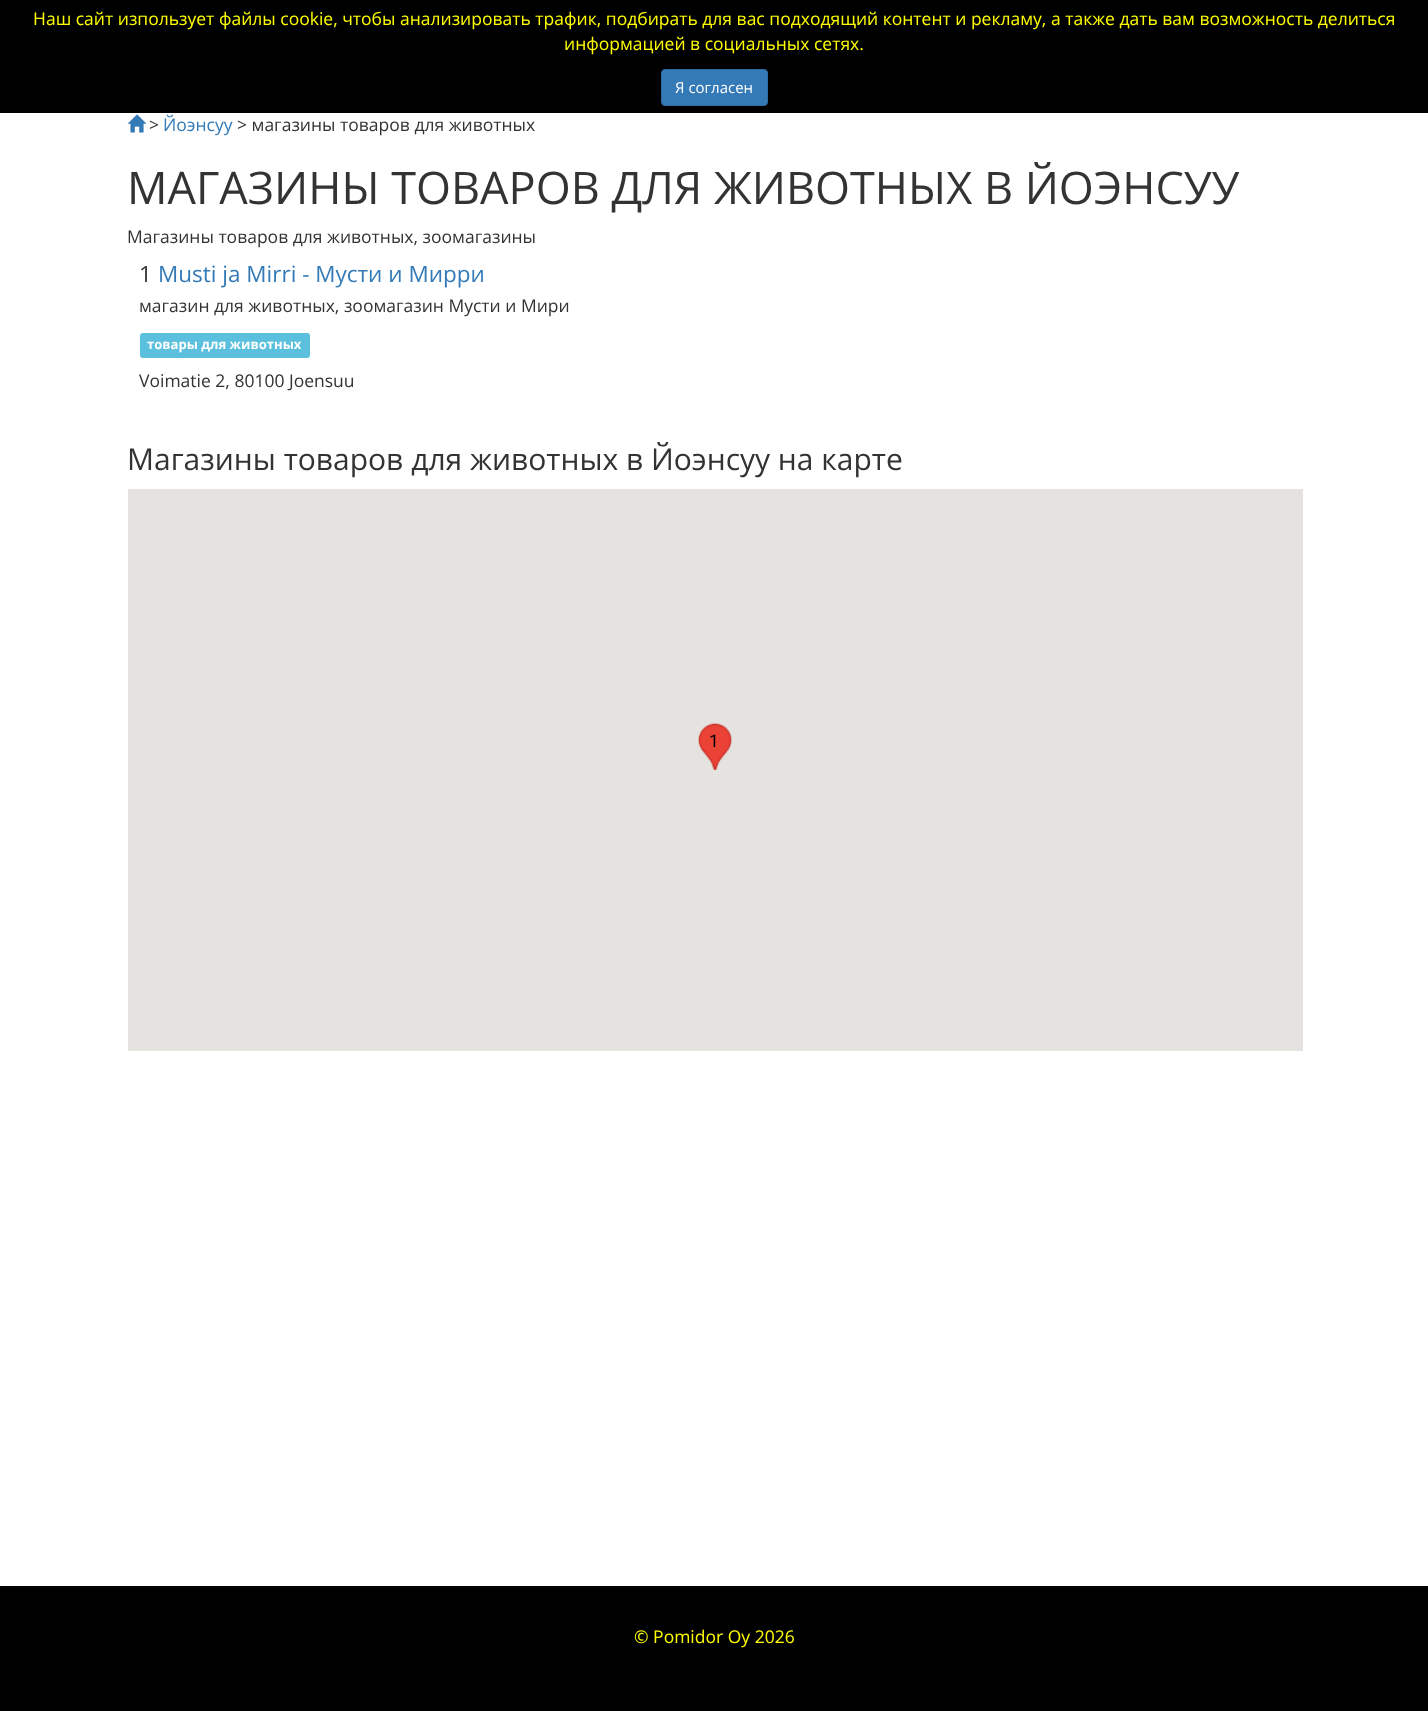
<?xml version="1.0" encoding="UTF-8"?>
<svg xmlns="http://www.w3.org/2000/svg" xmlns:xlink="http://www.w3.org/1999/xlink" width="1428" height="1711">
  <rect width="100%" height="100%" fill="#ffffff" />
  <rect width="1428" height="113" fill="#000000" />
  <rect x="661.5" y="69.5" width="106" height="36" rx="3.5" fill="#337ab7" stroke="#2e6da4" />
  <image x="127" y="114" width="20" height="19" xlink:href="image1.png" />
  <rect x="140" y="333" width="170" height="25" rx="3" fill="#5bc0de" />
  <rect x="128" y="489" width="1175" height="562" fill="#e5e3df" />
  <image x="698" y="723" width="34" height="47" xlink:href="image2.png" />
  <rect y="1586" width="1428" height="125" fill="#000000" />
  <text x="33" y="25" style="font-family: Open Sans; font-size: 17.5px; fill: #ffff00">Наш сайт изпользует файлы cookie, чтобы анализировать трафик, подбирать для вас подходящий контент и рекламу, а также дать вам возможность делиться</text>
  <text x="564" y="50" style="font-family: Open Sans; font-size: 17.5px; fill: #ffff00">информацией в социальных сетях.</text>
  <text x="675" y="93" style="font-family: Open Sans; font-size: 15px; fill: #ffffff">Я согласен</text>
  <text x="149" y="131" style="font-family: Open Sans; font-size: 17.5px; fill: #333333">&gt;</text>
  <text x="163" y="131" style="font-family: Open Sans; font-size: 17.5px; fill: #337ab7">Йоэнсуу</text>
  <text x="237" y="131" style="font-family: Open Sans; font-size: 17.5px; fill: #333333">&gt; магазины товаров для животных</text>
  <text x="127" y="204" style="font-family: Open Sans; font-size: 45px; fill: #333333">МАГАЗИНЫ ТОВАРОВ ДЛЯ ЖИВОТНЫХ В ЙОЭНСУУ</text>
  <text x="127" y="243" style="font-family: Open Sans; font-size: 17.5px; fill: #333333">Магазины товаров для животных, зоомагазины</text>
  <text x="139" y="282" style="font-family: Open Sans; font-size: 22.5px; fill: #333333">1</text>
  <text x="158" y="282" style="font-family: Open Sans; font-size: 22.5px; fill: #337ab7">Musti ja Mirri - Мусти и Мирри</text>
  <text x="139" y="312" style="font-family: Open Sans; font-size: 17.5px; fill: #333333">магазин для животных, зоомагазин Мусти и Мири</text>
  <text x="147" y="349" style="font-family: Open Sans; font-size: 13.1px; font-weight: bold; fill: #ffffff">товары для животных</text>
  <text x="139" y="387" style="font-family: Open Sans; font-size: 17.5px; fill: #333333">Voimatie 2, 80100 Joensuu</text>
  <text x="127" y="470" style="font-family: Open Sans; font-size: 30px; fill: #333333">Магазины товаров для животных в Йоэнсуу на карте</text>
  <text x="709" y="747" style="font-family: Roboto; font-size: 17.5px; fill: #000000">1</text>
  <text x="634" y="1643" style="font-family: Open Sans; font-size: 17.5px; fill: #ffff00">© Pomidor Oy 2026</text>
</svg>
